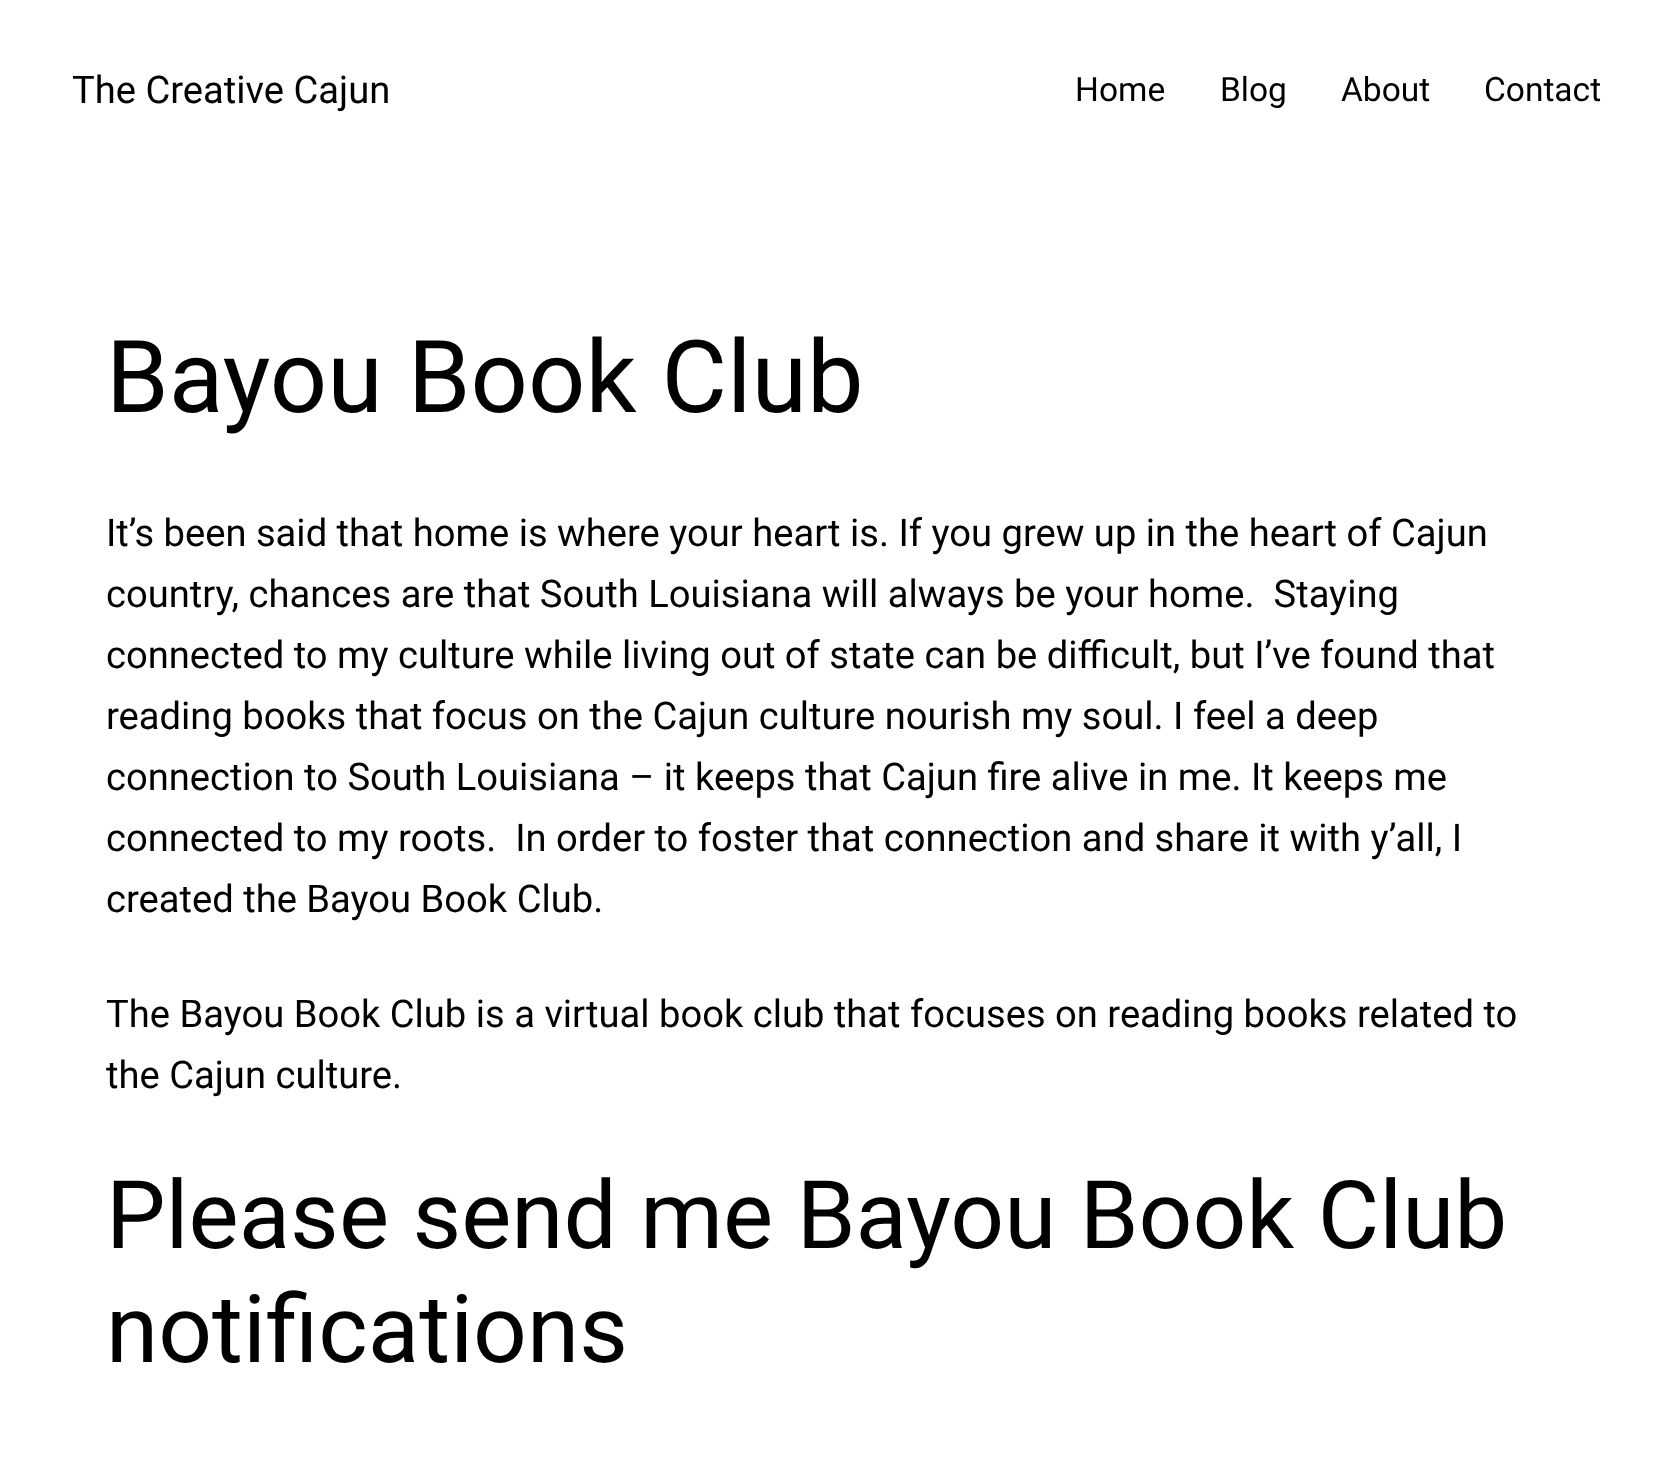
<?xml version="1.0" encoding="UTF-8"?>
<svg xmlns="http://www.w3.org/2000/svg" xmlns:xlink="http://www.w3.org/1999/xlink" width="1673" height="1463">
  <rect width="100%" height="100%" fill="#ffffff" />
  <text x="72" y="103" style="font-family: Roboto; font-size: 38.15px; fill: #000000">The Creative Cajun</text>
  <text x="1075" y="101" style="font-family: Roboto; font-size: 33.5px; fill: #000000">Home</text>
  <text x="1220" y="101" style="font-family: Roboto; font-size: 33.5px; fill: #000000">Blog</text>
  <text x="1341" y="101" style="font-family: Roboto; font-size: 33.5px; fill: #000000">About</text>
  <text x="1484" y="101" style="font-family: Roboto; font-size: 33.5px; fill: #000000">Contact</text>
  <text x="106" y="412" style="font-family: Roboto; font-size: 100.75px; fill: #000000">Bayou Book Club</text>
  <text x="106" y="546" style="font-family: Roboto; font-size: 38.15px; fill: #000000">It’s been said that home is where your heart is. If you grew up in the heart of Cajun</text>
  <text x="106" y="607" style="font-family: Roboto; font-size: 38.15px; fill: #000000" xml:space="preserve">country, chances are that South Louisiana will always be your home.  Staying</text>
  <text x="106" y="668" style="font-family: Roboto; font-size: 38.15px; fill: #000000">connected to my culture while living out of state can be difficult, but I’ve found that</text>
  <text x="106" y="729" style="font-family: Roboto; font-size: 38.15px; fill: #000000">reading books that focus on the Cajun culture nourish my soul. I feel a deep</text>
  <text x="106" y="790" style="font-family: Roboto; font-size: 38.15px; fill: #000000">connection to South Louisiana – it keeps that Cajun fire alive in me. It keeps me</text>
  <text x="106" y="851" style="font-family: Roboto; font-size: 38.15px; fill: #000000" xml:space="preserve">connected to my roots.  In order to foster that connection and share it with y’all, I</text>
  <text x="106" y="912" style="font-family: Roboto; font-size: 38.15px; fill: #000000">created the Bayou Book Club.</text>
  <text x="106" y="1027" style="font-family: Roboto; font-size: 38.15px; fill: #000000">The Bayou Book Club is a virtual book club that focuses on reading books related to</text>
  <text x="106" y="1088" style="font-family: Roboto; font-size: 38.15px; fill: #000000">the Cajun culture.</text>
  <text x="106" y="1248" style="font-family: Roboto; font-size: 94.5px; fill: #000000">Please send me Bayou Book Club</text>
  <text x="106" y="1362" style="font-family: Roboto; font-size: 94.5px; fill: #000000">notifications</text>
</svg>
